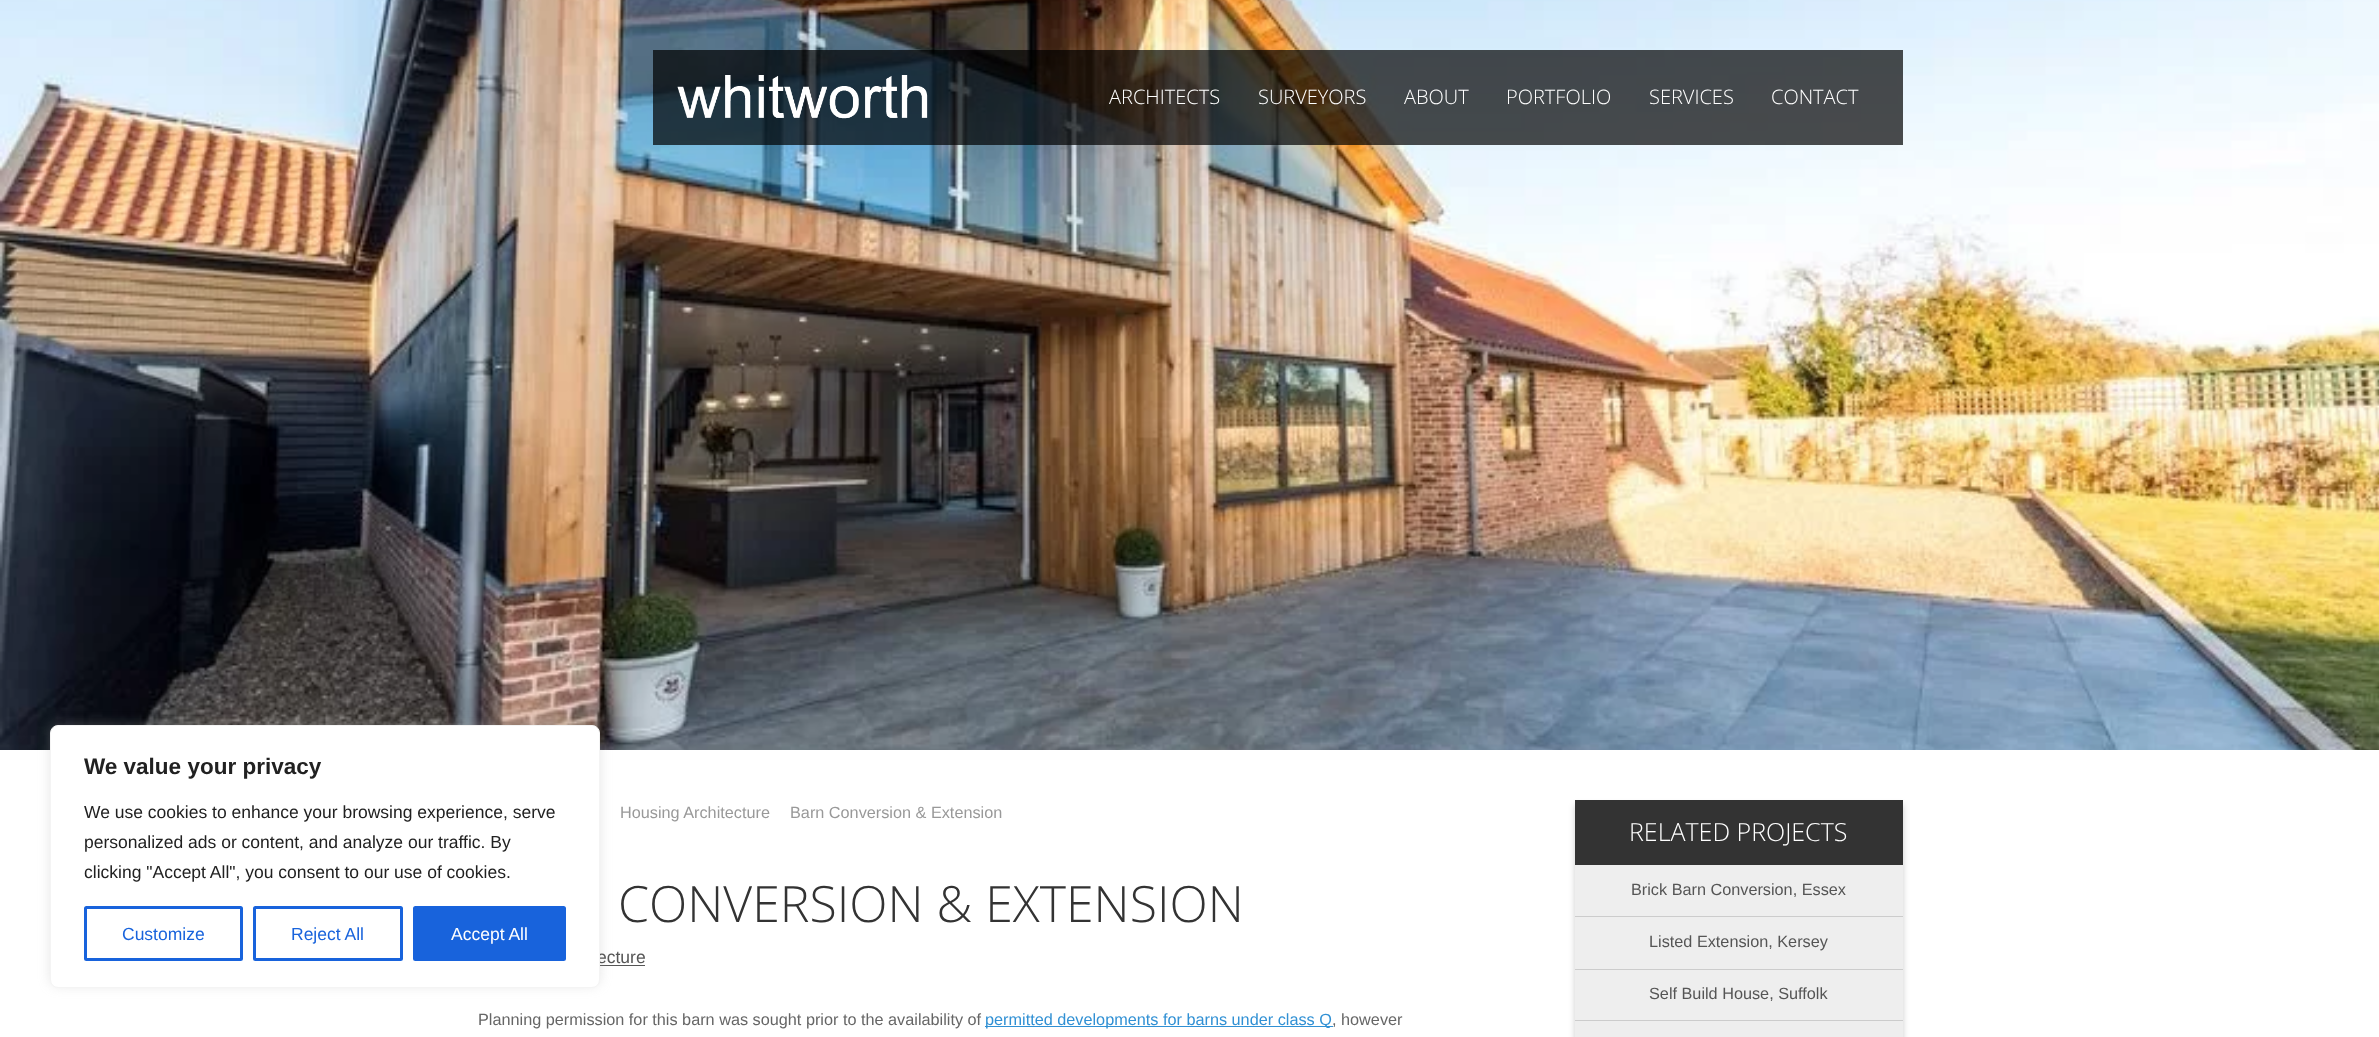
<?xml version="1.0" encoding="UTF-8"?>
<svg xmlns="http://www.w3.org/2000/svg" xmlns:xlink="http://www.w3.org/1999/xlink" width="2379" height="1037">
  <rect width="100%" height="100%" fill="#ffffff" />
  <image x="0" y="0" width="2379" height="750" xlink:href="image1.png" />
  <rect x="653" y="50" width="1250" height="95" fill="#000000" fill-opacity="0.7" />
  <image x="677" y="75" width="251" height="44" xlink:href="image2.png" />
  <rect x="600" y="965" width="45" height="1" fill="#555555" />
  <rect x="50" y="724" width="550" height="262" rx="8" fill="#acabab" fill-opacity="0.3" filter="blur(6px)" />
  <rect x="985" y="1026" width="348" height="1" fill="#3090d4" />
  <rect x="1575" y="805" width="328" height="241" fill="#000000" fill-opacity="0.2" filter="blur(3px)" />
  <rect x="1575" y="865" width="328" height="172" fill="#eeeeee" />
  <rect x="1575" y="800" width="328" height="65" fill="#333333" />
  <rect x="1575" y="916" width="328" height="1" fill="#cccccc" />
  <rect x="1575" y="969" width="328" height="1" fill="#cccccc" />
  <rect x="1575" y="1020" width="328" height="1" fill="#cccccc" />
  <text x="1109" y="104" style="font-family: Open Sans; font-size: 20px; font-weight: 300; fill: #ffffff">ARCHITECTS</text>
  <text x="1258" y="104" style="font-family: Open Sans; font-size: 20px; font-weight: 300; fill: #ffffff">SURVEYORS</text>
  <text x="1404" y="104" style="font-family: Open Sans; font-size: 20px; font-weight: 300; fill: #ffffff">ABOUT</text>
  <text x="1506" y="104" style="font-family: Open Sans; font-size: 20px; font-weight: 300; fill: #ffffff">PORTFOLIO</text>
  <text x="1649" y="104" style="font-family: Open Sans; font-size: 20px; font-weight: 300; fill: #ffffff">SERVICES</text>
  <text x="1771" y="104" style="font-family: Open Sans; font-size: 20px; font-weight: 300; fill: #ffffff">CONTACT</text>
  <text x="620" y="818" style="font-family: Liberation Sans; font-size: 16.25px; fill: #999999">Housing Architecture</text>
  <text x="790" y="818" style="font-family: Liberation Sans; font-size: 16.25px; fill: #999999">Barn Conversion &amp; Extension</text>
  <text x="618" y="922" style="font-family: Open Sans; font-size: 50px; font-weight: 300; fill: #333333">CONVERSION &amp; EXTENSION</text>
  <text x="597" y="963" style="font-family: Liberation Sans; font-size: 17.5px; fill: #555555">ecture</text>
  <rect x="50.5" y="725.5" width="549" height="262" rx="7.5" fill="#ffffff" stroke="#f4f4f4" />
  <rect x="414.5" y="907.5" width="150" height="52" rx="1" fill="#1863dc" stroke="#1863dc" stroke-width="3" />
  <text x="451" y="940" style="font-family: Liberation Sans; font-size: 17.5px; fill: #ffffff">Accept All</text>
  <rect x="254.5" y="907.5" width="147" height="52" rx="1" fill="none" stroke="#1863dc" stroke-width="3" />
  <text x="291" y="940" style="font-family: Liberation Sans; font-size: 17.5px; fill: #1863dc">Reject All</text>
  <rect x="85.5" y="907.5" width="156" height="52" rx="1" fill="none" stroke="#1863dc" stroke-width="3" />
  <text x="122" y="940" style="font-family: Liberation Sans; font-size: 17.5px; fill: #1863dc">Customize</text>
  <text x="84" y="878" style="font-family: Liberation Sans; font-size: 17.5px; fill: #212121">clicking "Accept All", you consent to our use of cookies.</text>
  <text x="84" y="848" style="font-family: Liberation Sans; font-size: 17.5px; fill: #212121">personalized ads or content, and analyze our traffic. By</text>
  <text x="84" y="818" style="font-family: Liberation Sans; font-size: 17.5px; fill: #212121">We use cookies to enhance your browsing experience, serve</text>
  <text x="84" y="774" style="font-family: Liberation Sans; font-size: 22.5px; font-weight: bold; fill: #212121">We value your privacy</text>
  <text x="478" y="1025" style="font-family: Liberation Sans; font-size: 16.25px; fill: #666666">Planning permission for this barn was sought prior to the availability of</text>
  <text x="985" y="1025" style="font-family: Liberation Sans; font-size: 16.25px; fill: #3090d4">permitted developments for barns under class Q</text>
  <text x="1332" y="1025" style="font-family: Liberation Sans; font-size: 16.25px; fill: #666666">, however</text>
  <text x="1629" y="841" style="font-family: Open Sans; font-size: 25px; font-weight: 300; fill: #ffffff">RELATED PROJECTS</text>
  <text x="1631" y="895" style="font-family: Liberation Sans; font-size: 16.25px; fill: #555555">Brick Barn Conversion, Essex</text>
  <text x="1649" y="947" style="font-family: Liberation Sans; font-size: 16.25px; fill: #555555">Listed Extension, Kersey</text>
  <text x="1649" y="999" style="font-family: Liberation Sans; font-size: 16.25px; fill: #555555">Self Build House, Suffolk</text>
</svg>
